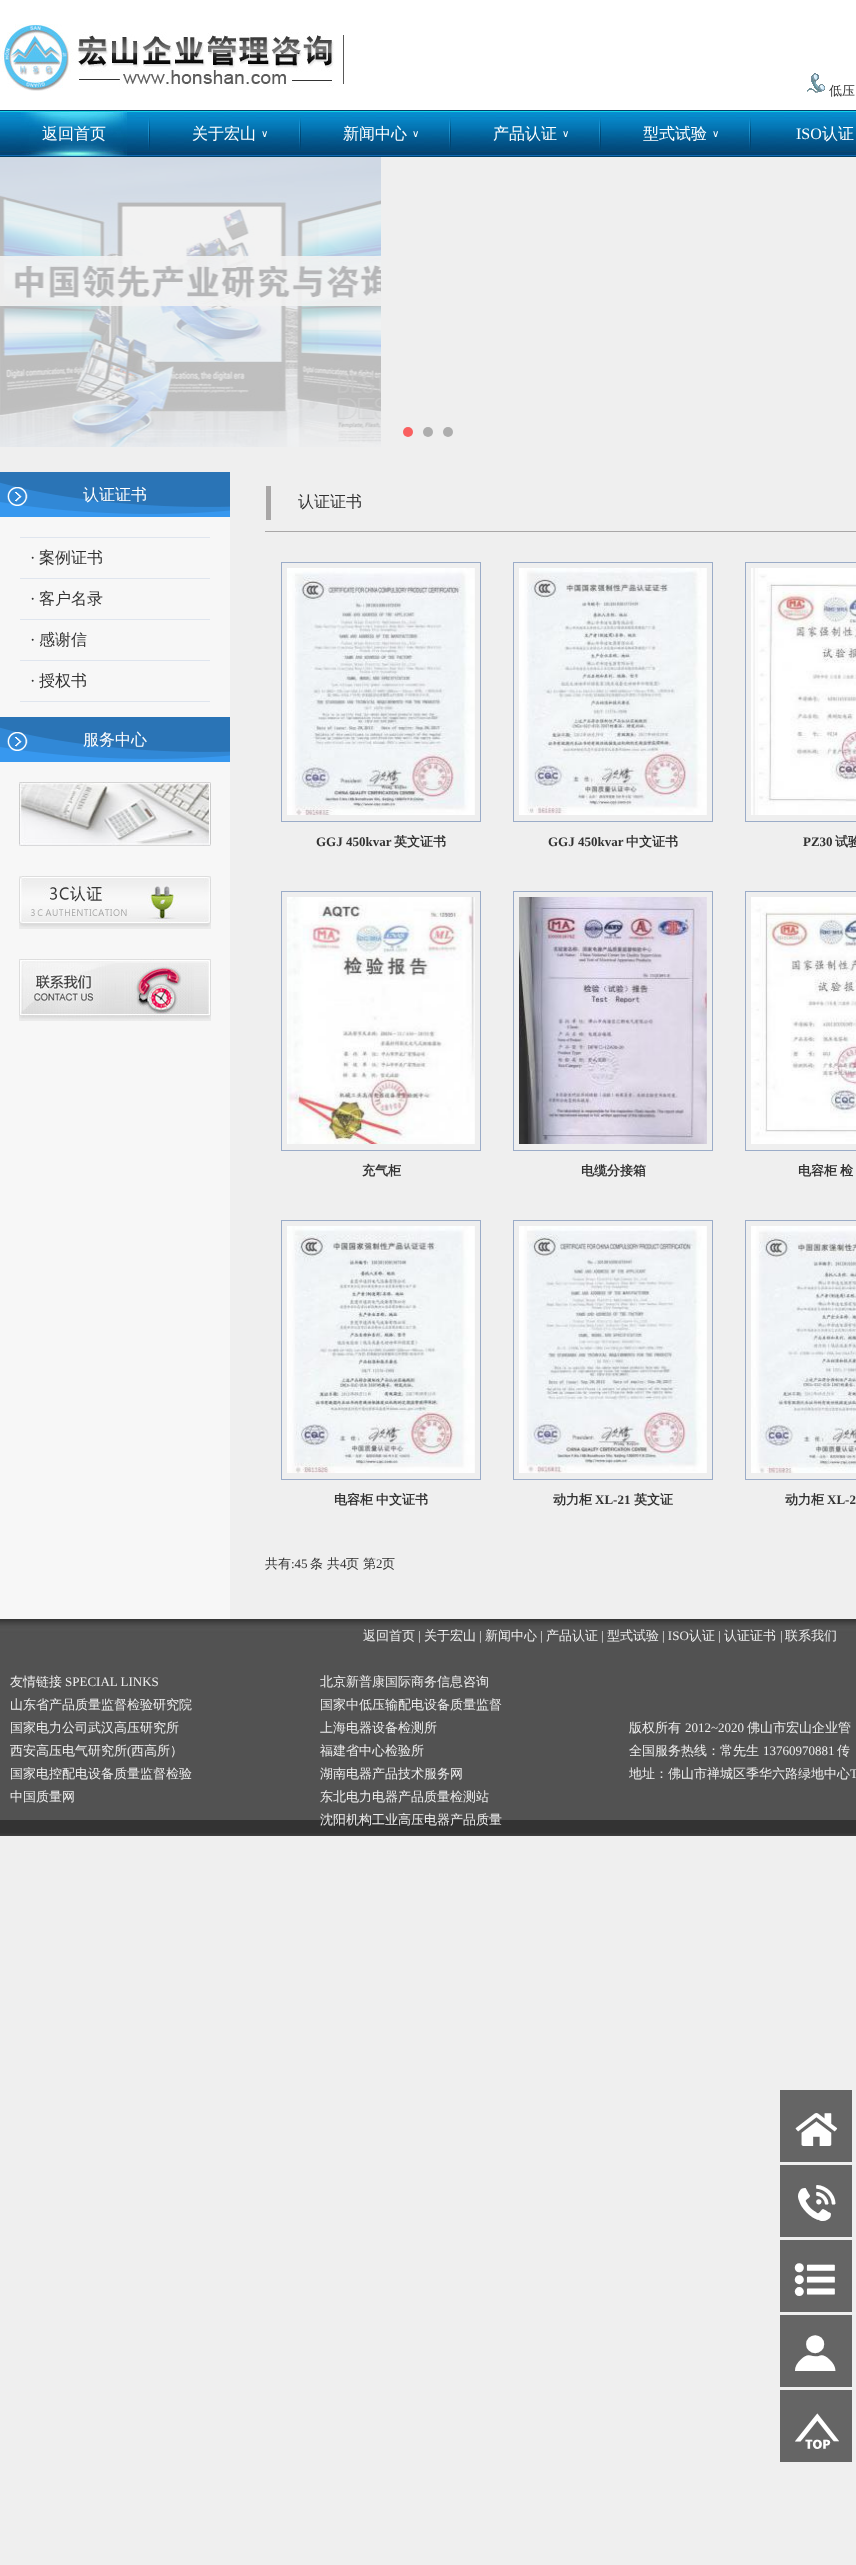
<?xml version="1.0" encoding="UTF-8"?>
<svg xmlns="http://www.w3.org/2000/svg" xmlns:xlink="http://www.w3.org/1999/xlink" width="856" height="2565">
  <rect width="100%" height="100%" fill="#efefef" />
  <rect width="856" height="110" fill="#ffffff" />
  <image x="0" y="24" width="344" height="67" xlink:href="image1.png" />
  <image x="807" y="73" width="18" height="20" xlink:href="image2.png" />
  <image x="0" y="110" width="856" height="47" xlink:href="image3.png" />
  <image x="21" y="110" width="106" height="47" xlink:href="image4.png" />
  <image x="148" y="111" width="2" height="39" xlink:href="image5.png" />
  <image x="299" y="118" width="2" height="32" xlink:href="image6.png" />
  <image x="449" y="111" width="2" height="39" xlink:href="image5.png" />
  <image x="599" y="111" width="2" height="39" xlink:href="image5.png" />
  <image x="749" y="111" width="2" height="39" xlink:href="image5.png" />
  <image x="0" y="157" width="381" height="290" xlink:href="image7.png" />
  <circle cx="408" cy="432" r="5" fill="#f96060" />
  <circle cx="428" cy="432" r="5" fill="#adadad" />
  <circle cx="448" cy="432" r="5" fill="#adadad" />
  <rect y="517" width="230" height="1102" fill="#f7f7f7" />
  <rect y="472" width="230" height="45" fill="#3798ef" />
  <image x="0" y="472" width="230" height="42" xlink:href="image8.png" />
  <rect x="20" y="537" width="190" height="1" fill="#dfe5ee" />
  <rect x="20" y="578" width="190" height="1" fill="#dfe5ee" />
  <rect x="20" y="619" width="190" height="1" fill="#dfe5ee" />
  <rect x="20" y="660" width="190" height="1" fill="#dfe5ee" />
  <rect x="20" y="701" width="190" height="1" fill="#dfe5ee" />
  <rect y="717" width="230" height="45" fill="#3798ef" />
  <image x="0" y="717" width="230" height="42" xlink:href="image8.png" />
  <image x="19" y="782" width="192" height="64" xlink:href="image9.png" />
  <image x="19" y="876" width="192" height="53" xlink:href="image10.png" />
  <image x="19" y="959" width="192" height="62" xlink:href="image11.png" />
  <image x="265" y="486" width="591" height="46" xlink:href="image12.png" />
  <rect x="281.5" y="562.5" width="199" height="259" fill="none" stroke="#9bacc8" />
  <image x="287" y="568" width="188" height="247" xlink:href="image13.png" />
  <rect x="513.5" y="562.5" width="199" height="259" fill="none" stroke="#9bacc8" />
  <image x="519" y="568" width="188" height="247" xlink:href="image14.png" />
  <rect x="745.5" y="562.5" width="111" height="259" fill="none" stroke="#9bacc8" />
  <image x="751" y="568" width="105" height="247" xlink:href="image15.png" />
  <rect x="281.5" y="891.5" width="199" height="259" fill="none" stroke="#9bacc8" />
  <image x="287" y="897" width="188" height="247" xlink:href="image16.png" />
  <rect x="513.5" y="891.5" width="199" height="259" fill="none" stroke="#9bacc8" />
  <image x="519" y="897" width="188" height="247" xlink:href="image17.png" />
  <rect x="745.5" y="891.5" width="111" height="259" fill="none" stroke="#9bacc8" />
  <image x="751" y="897" width="105" height="247" xlink:href="image18.png" />
  <rect x="281.5" y="1220.5" width="199" height="259" fill="none" stroke="#9bacc8" />
  <image x="287" y="1226" width="188" height="247" xlink:href="image19.png" />
  <rect x="513.5" y="1220.5" width="199" height="259" fill="none" stroke="#9bacc8" />
  <image x="519" y="1226" width="188" height="247" xlink:href="image20.png" />
  <rect x="745.5" y="1220.5" width="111" height="259" fill="none" stroke="#9bacc8" />
  <image x="751" y="1226" width="105" height="247" xlink:href="image21.png" />
  <image x="0" y="1619" width="856" height="217" xlink:href="image22.png" />
  <rect x="780" y="2090" width="72" height="72" fill="#656565" />
  <rect x="780" y="2165" width="72" height="72" fill="#656565" />
  <rect x="780" y="2240" width="72" height="72" fill="#656565" />
  <rect x="780" y="2315" width="72" height="72" fill="#656565" />
  <rect x="780" y="2390" width="72" height="72" fill="#656565" />
  <text x="829" y="95" style="font-family: WenQuanYi Zen Hei; font-size: 13px; font-weight: 500; fill: #333333">低压</text>
  <text x="42" y="139" style="font-family: WenQuanYi Zen Hei; font-size: 16px; font-weight: 500; fill: #ffffff">返回首页</text>
  <text x="192" y="139" style="font-family: WenQuanYi Zen Hei; font-size: 16px; font-weight: 500; fill: #ffffff">关于宏山</text>
  <text x="261" y="137" style="font-family: DejaVu Sans; font-size: 10px; fill: #ffffff">∨</text>
  <text x="343" y="139" style="font-family: WenQuanYi Zen Hei; font-size: 16px; font-weight: 500; fill: #ffffff">新闻中心</text>
  <text x="412" y="137" style="font-family: DejaVu Sans; font-size: 10px; fill: #ffffff">∨</text>
  <text x="493" y="139" style="font-family: WenQuanYi Zen Hei; font-size: 16px; font-weight: 500; fill: #ffffff">产品认证</text>
  <text x="562" y="137" style="font-family: DejaVu Sans; font-size: 10px; fill: #ffffff">∨</text>
  <text x="643" y="139" style="font-family: WenQuanYi Zen Hei; font-size: 16px; font-weight: 500; fill: #ffffff">型式试验</text>
  <text x="712" y="137" style="font-family: DejaVu Sans; font-size: 10px; fill: #ffffff">∨</text>
  <text x="796" y="139" style="font-family: Liberation Serif; font-size: 16px; fill: #ffffff">ISO</text>
  <text x="822" y="139" style="font-family: WenQuanYi Zen Hei; font-size: 16px; font-weight: 500; fill: #ffffff">认证</text>
  <text x="83" y="500" style="font-family: WenQuanYi Zen Hei; font-size: 16px; font-weight: 500; fill: #ffffff">认证证书</text>
  <text x="30" y="563" style="font-family: Liberation Serif; font-size: 16px; fill: #333333">·</text>
  <text x="39" y="563" style="font-family: WenQuanYi Zen Hei; font-size: 16px; font-weight: 500; fill: #333333">案例证书</text>
  <text x="30" y="604" style="font-family: Liberation Serif; font-size: 16px; fill: #333333">·</text>
  <text x="39" y="604" style="font-family: WenQuanYi Zen Hei; font-size: 16px; font-weight: 500; fill: #333333">客户名录</text>
  <text x="30" y="645" style="font-family: Liberation Serif; font-size: 16px; fill: #333333">·</text>
  <text x="39" y="645" style="font-family: WenQuanYi Zen Hei; font-size: 16px; font-weight: 500; fill: #333333">感谢信</text>
  <text x="30" y="686" style="font-family: Liberation Serif; font-size: 16px; fill: #333333">·</text>
  <text x="39" y="686" style="font-family: WenQuanYi Zen Hei; font-size: 16px; font-weight: 500; fill: #333333">授权书</text>
  <text x="83" y="745" style="font-family: WenQuanYi Zen Hei; font-size: 16px; font-weight: 500; fill: #ffffff">服务中心</text>
  <text x="298" y="507" style="font-family: WenQuanYi Zen Hei; font-size: 16px; font-weight: 500; fill: #333333">认证证书</text>
  <text x="316" y="846" style="font-family: Liberation Serif; font-size: 13px; font-weight: bold; fill: #333333">GGJ 450kvar</text>
  <text x="394" y="846" style="font-family: WenQuanYi Zen Hei; font-size: 13px; font-weight: bold; fill: #333333">英文证书</text>
  <text x="548" y="846" style="font-family: Liberation Serif; font-size: 13px; font-weight: bold; fill: #333333">GGJ 450kvar</text>
  <text x="626" y="846" style="font-family: WenQuanYi Zen Hei; font-size: 13px; font-weight: bold; fill: #333333">中文证书</text>
  <text x="803" y="846" style="font-family: Liberation Serif; font-size: 13px; font-weight: bold; fill: #333333">PZ30</text>
  <text x="835" y="846" style="font-family: WenQuanYi Zen Hei; font-size: 13px; font-weight: bold; fill: #333333">试验</text>
  <text x="362" y="1175" style="font-family: WenQuanYi Zen Hei; font-size: 13px; font-weight: bold; fill: #333333">充气柜</text>
  <text x="581" y="1175" style="font-family: WenQuanYi Zen Hei; font-size: 13px; font-weight: bold; fill: #333333">电缆分接箱</text>
  <text x="798" y="1175" word-spacing="-1" style="font-family: WenQuanYi Zen Hei; font-size: 13px; font-weight: bold; fill: #333333">电容柜 检</text>
  <text x="334" y="1504" word-spacing="-1" style="font-family: WenQuanYi Zen Hei; font-size: 13px; font-weight: bold; fill: #333333">电容柜 中文证书</text>
  <text x="553" y="1504" style="font-family: WenQuanYi Zen Hei; font-size: 13px; font-weight: bold; fill: #333333">动力柜</text>
  <text x="595" y="1504" style="font-family: Liberation Serif; font-size: 13px; font-weight: bold; fill: #333333">XL-21</text>
  <text x="634" y="1504" style="font-family: WenQuanYi Zen Hei; font-size: 13px; font-weight: bold; fill: #333333">英文证</text>
  <text x="785" y="1504" style="font-family: WenQuanYi Zen Hei; font-size: 13px; font-weight: bold; fill: #333333">动力柜</text>
  <text x="827" y="1504" style="font-family: Liberation Serif; font-size: 13px; font-weight: bold; fill: #333333">XL-2</text>
  <text x="265" y="1568" style="font-family: WenQuanYi Zen Hei; font-size: 13px; font-weight: 500; fill: #333333">共有</text>
  <text x="291" y="1568" style="font-family: Liberation Serif; font-size: 13px; fill: #333333">:45</text>
  <text x="310" y="1568" style="font-family: WenQuanYi Zen Hei; font-size: 13px; font-weight: 500; fill: #333333">条 共</text>
  <text x="340" y="1568" style="font-family: Liberation Serif; font-size: 13px; fill: #333333">4</text>
  <text x="346" y="1568" style="font-family: WenQuanYi Zen Hei; font-size: 13px; font-weight: 500; fill: #333333">页 第</text>
  <text x="376" y="1568" style="font-family: Liberation Serif; font-size: 13px; fill: #333333">2</text>
  <text x="382" y="1568" style="font-family: WenQuanYi Zen Hei; font-size: 13px; font-weight: 500; fill: #333333">页</text>
  <text x="363" y="1640" style="font-family: WenQuanYi Zen Hei; font-size: 13px; font-weight: 500; fill: #eeeeee">返回首页</text>
  <text x="418" y="1640" style="font-family: Liberation Serif; font-size: 13px; fill: #eeeeee">|</text>
  <text x="424" y="1640" style="font-family: WenQuanYi Zen Hei; font-size: 13px; font-weight: 500; fill: #eeeeee">关于宏山</text>
  <text x="479" y="1640" style="font-family: Liberation Serif; font-size: 13px; fill: #eeeeee">|</text>
  <text x="485" y="1640" style="font-family: WenQuanYi Zen Hei; font-size: 13px; font-weight: 500; fill: #eeeeee">新闻中心</text>
  <text x="540" y="1640" style="font-family: Liberation Serif; font-size: 13px; fill: #eeeeee">|</text>
  <text x="546" y="1640" style="font-family: WenQuanYi Zen Hei; font-size: 13px; font-weight: 500; fill: #eeeeee">产品认证</text>
  <text x="601" y="1640" style="font-family: Liberation Serif; font-size: 13px; fill: #eeeeee">|</text>
  <text x="607" y="1640" style="font-family: WenQuanYi Zen Hei; font-size: 13px; font-weight: 500; fill: #eeeeee">型式试验</text>
  <text x="662" y="1640" style="font-family: Liberation Serif; font-size: 13px; fill: #eeeeee">| ISO</text>
  <text x="689" y="1640" style="font-family: WenQuanYi Zen Hei; font-size: 13px; font-weight: 500; fill: #eeeeee">认证</text>
  <text x="718" y="1640" style="font-family: Liberation Serif; font-size: 13px; fill: #eeeeee">|</text>
  <text x="724" y="1640" style="font-family: WenQuanYi Zen Hei; font-size: 13px; font-weight: 500; fill: #eeeeee">认证证书</text>
  <text x="780" y="1640" style="font-family: Liberation Serif; font-size: 13px; fill: #eeeeee">|</text>
  <text x="785" y="1640" style="font-family: WenQuanYi Zen Hei; font-size: 13px; font-weight: 500; fill: #eeeeee">联系我们</text>
  <text x="10" y="1686" style="font-family: WenQuanYi Zen Hei; font-size: 13px; font-weight: 500; fill: #eeeeee">友情链接</text>
  <text x="65" y="1686" style="font-family: Liberation Serif; font-size: 13px; fill: #eeeeee">SPECIAL LINKS</text>
  <text x="10" y="1709" style="font-family: WenQuanYi Zen Hei; font-size: 13px; font-weight: 500; fill: #eeeeee">山东省产品质量监督检验研究院</text>
  <text x="10" y="1732" style="font-family: WenQuanYi Zen Hei; font-size: 13px; font-weight: 500; fill: #eeeeee">国家电力公司武汉高压研究所</text>
  <text x="10" y="1755" style="font-family: WenQuanYi Zen Hei; font-size: 13px; font-weight: 500; fill: #eeeeee">西安高压电气研究所</text>
  <text x="127" y="1755" style="font-family: Liberation Serif; font-size: 13px; fill: #eeeeee">(</text>
  <text x="131" y="1755" style="font-family: WenQuanYi Zen Hei; font-size: 13px; font-weight: 500; fill: #eeeeee">西高所）</text>
  <text x="10" y="1778" style="font-family: WenQuanYi Zen Hei; font-size: 13px; font-weight: 500; fill: #eeeeee">国家电控配电设备质量监督检验</text>
  <text x="10" y="1801" style="font-family: WenQuanYi Zen Hei; font-size: 13px; font-weight: 500; fill: #eeeeee">中国质量网</text>
  <text x="320" y="1686" style="font-family: WenQuanYi Zen Hei; font-size: 13px; font-weight: 500; fill: #eeeeee">北京新普康国际商务信息咨询</text>
  <text x="320" y="1709" style="font-family: WenQuanYi Zen Hei; font-size: 13px; font-weight: 500; fill: #eeeeee">国家中低压输配电设备质量监督</text>
  <text x="320" y="1732" style="font-family: WenQuanYi Zen Hei; font-size: 13px; font-weight: 500; fill: #eeeeee">上海电器设备检测所</text>
  <text x="320" y="1755" style="font-family: WenQuanYi Zen Hei; font-size: 13px; font-weight: 500; fill: #eeeeee">福建省中心检验所</text>
  <text x="320" y="1778" style="font-family: WenQuanYi Zen Hei; font-size: 13px; font-weight: 500; fill: #eeeeee">湖南电器产品技术服务网</text>
  <text x="320" y="1801" style="font-family: WenQuanYi Zen Hei; font-size: 13px; font-weight: 500; fill: #eeeeee">东北电力电器产品质量检测站</text>
  <text x="320" y="1824" style="font-family: WenQuanYi Zen Hei; font-size: 13px; font-weight: 500; fill: #eeeeee">沈阳机构工业高压电器产品质量</text>
  <text x="629" y="1732" style="font-family: WenQuanYi Zen Hei; font-size: 13px; font-weight: 500; fill: #eeeeee">版权所有</text>
  <text x="685" y="1732" style="font-family: Liberation Serif; font-size: 13px; fill: #eeeeee">2012~2020</text>
  <text x="747" y="1732" style="font-family: WenQuanYi Zen Hei; font-size: 13px; font-weight: 500; fill: #eeeeee">佛山市宏山企业管</text>
  <text x="629" y="1755" style="font-family: WenQuanYi Zen Hei; font-size: 13px; font-weight: 500; fill: #eeeeee">全国服务热线：常先生</text>
  <text x="763" y="1755" style="font-family: Liberation Serif; font-size: 13px; fill: #eeeeee">13760970881</text>
  <text x="837" y="1755" style="font-family: WenQuanYi Zen Hei; font-size: 13px; font-weight: 500; fill: #eeeeee">传</text>
  <text x="629" y="1778" style="font-family: WenQuanYi Zen Hei; font-size: 13px; font-weight: 500; fill: #eeeeee">地址：佛山市禅城区季华六路绿地中心</text>
  <text x="850" y="1778" style="font-family: Liberation Serif; font-size: 13px; fill: #eeeeee">T</text>
  <text x="795" y="2146" style="font-family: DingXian; font-size: 46px; fill: #ffffff">X</text>
  <text x="798" y="2221" style="font-family: DingXian; font-size: 46px; fill: #ffffff">y</text>
  <text x="793" y="2296" style="font-family: DingXian; font-size: 46px; fill: #ffffff">P</text>
  <text x="795" y="2371" style="font-family: DingXian; font-size: 46px; fill: #ffffff">S</text>
  <text x="806" y="2446" style="font-family: DingXian; font-size: 46px; fill: #ffffff">u</text>
</svg>
